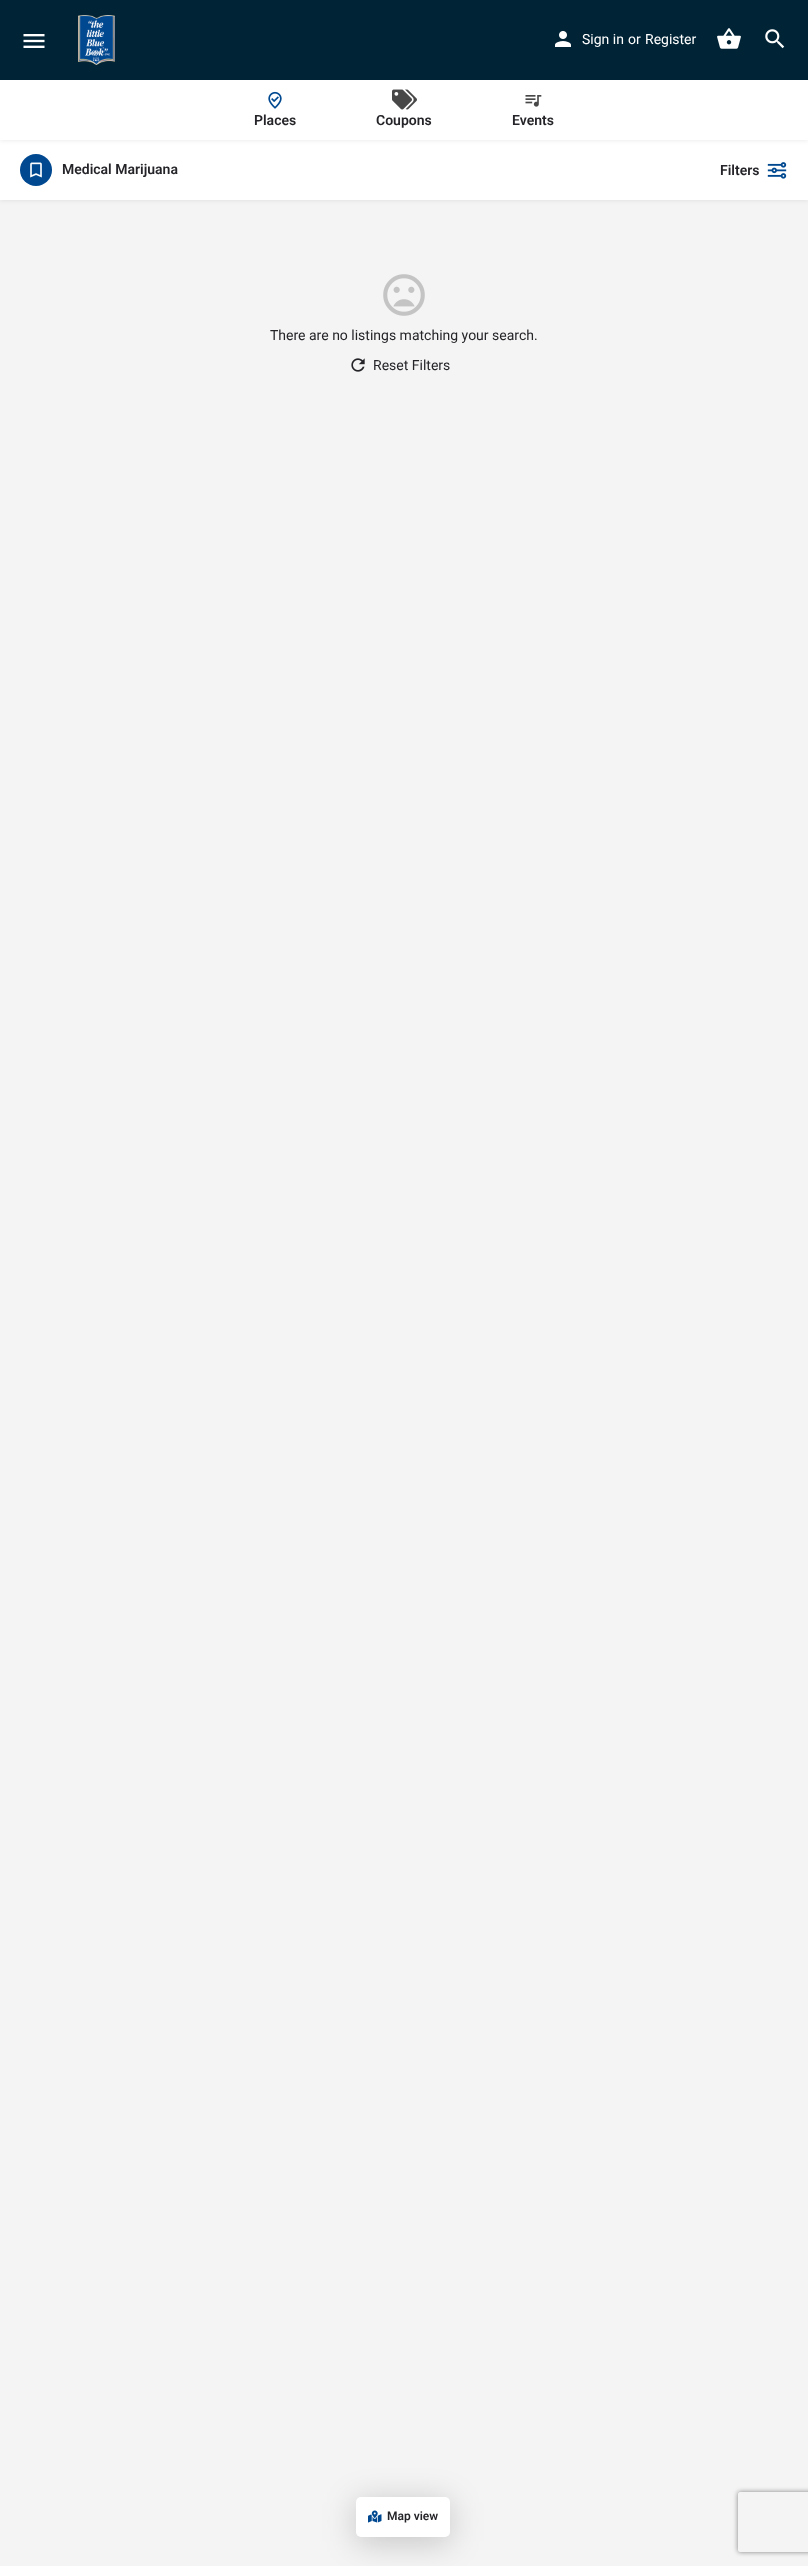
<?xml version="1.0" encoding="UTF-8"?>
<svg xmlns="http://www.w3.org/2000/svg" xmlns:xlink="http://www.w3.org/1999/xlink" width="808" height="2566">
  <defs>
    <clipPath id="clip1"><path d="M 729 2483 h 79 v 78 h -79 z m 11 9 h 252 c 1 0 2 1 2 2 v 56 c 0 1 -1 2 -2 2 h -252 c -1 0 -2 -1 -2 -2 v -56 c 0 -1 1 -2 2 -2 z" clip-rule="evenodd" /></clipPath>
  </defs>
  <rect width="100%" height="100%" fill="#f4f4f4" />
  <rect y="141" width="808" height="60" fill="#000000" fill-opacity="0.07" filter="blur(2px)" />
  <rect y="140" width="808" height="60" fill="#ffffff" />
  <rect y="81" width="808" height="60" fill="#000000" fill-opacity="0.07" filter="blur(2px)" />
  <rect width="808" height="80" fill="#002436" />
  <image x="23" y="34" width="22" height="14" xlink:href="image1.png" />
  <image x="78" y="15" width="37" height="50" xlink:href="image2.png" />
  <image x="555" y="31" width="16" height="16" xlink:href="image3.png" />
  <image x="717" y="28" width="24" height="21" xlink:href="image4.png" />
  <image x="765" y="29" width="20" height="20" xlink:href="image5.png" />
  <rect y="80" width="808" height="60" fill="#ffffff" />
  <image x="268" y="91" width="14" height="18" xlink:href="image6.png" />
  <image x="392" y="89" width="25" height="21" xlink:href="image7.png" />
  <image x="525" y="95" width="17" height="12" xlink:href="image8.png" />
  <circle cx="36" cy="170" r="16" fill="#004990" />
  <image x="30" y="162" width="12" height="16" xlink:href="image9.png" />
  <image x="767" y="162" width="20" height="17" xlink:href="image10.png" />
  <image x="383" y="274" width="42" height="42" xlink:href="image11.png" />
  <image x="351" y="358" width="14" height="14" xlink:href="image12.png" />
  <rect x="356" y="2502" width="94" height="40" rx="5" fill="#000000" fill-opacity="0.2" filter="blur(16.5px)" />
  <rect x="356" y="2497" width="94" height="40" rx="5" fill="#ffffff" />
  <image x="368" y="2510" width="14" height="13" xlink:href="image13.png" />
  <g clip-path="url(#clip1)">
    <rect x="738" y="2492" width="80" height="60" rx="2" fill="#808080" filter="blur(2.5px)" />
  </g>
  <text x="582" y="44" style="font-family: Roboto; font-size: 14px; fill: #ffffff">Sign in</text>
  <text x="628" y="44" style="font-family: Roboto; font-size: 14px; fill: #ffffff">or</text>
  <text x="645" y="44" style="font-family: Roboto; font-size: 14px; fill: #ffffff">Register</text>
  <text x="254" y="125" style="font-family: Roboto; font-size: 14px; font-weight: 600; fill: #242429">Places</text>
  <text x="376" y="125" style="font-family: Roboto; font-size: 14px; font-weight: 600; fill: #242429">Coupons</text>
  <text x="512" y="125" style="font-family: Roboto; font-size: 14px; font-weight: 600; fill: #242429">Events</text>
  <text x="62" y="174" style="font-family: Roboto; font-size: 14px; font-weight: 600; fill: #242429">Medical Marijuana</text>
  <text x="720" y="175" style="font-family: Roboto; font-size: 14px; font-weight: 600; fill: #242429">Filters</text>
  <text x="270" y="340" style="font-family: Roboto; font-size: 14px; fill: #242429">There are no listings matching your search.</text>
  <text x="373" y="370" style="font-family: Roboto; font-size: 14px; fill: #242429">Reset Filters</text>
  <text x="387" y="2520" style="font-family: Roboto; font-size: 12px; font-weight: 600; fill: #242429">Map view</text>
</svg>
